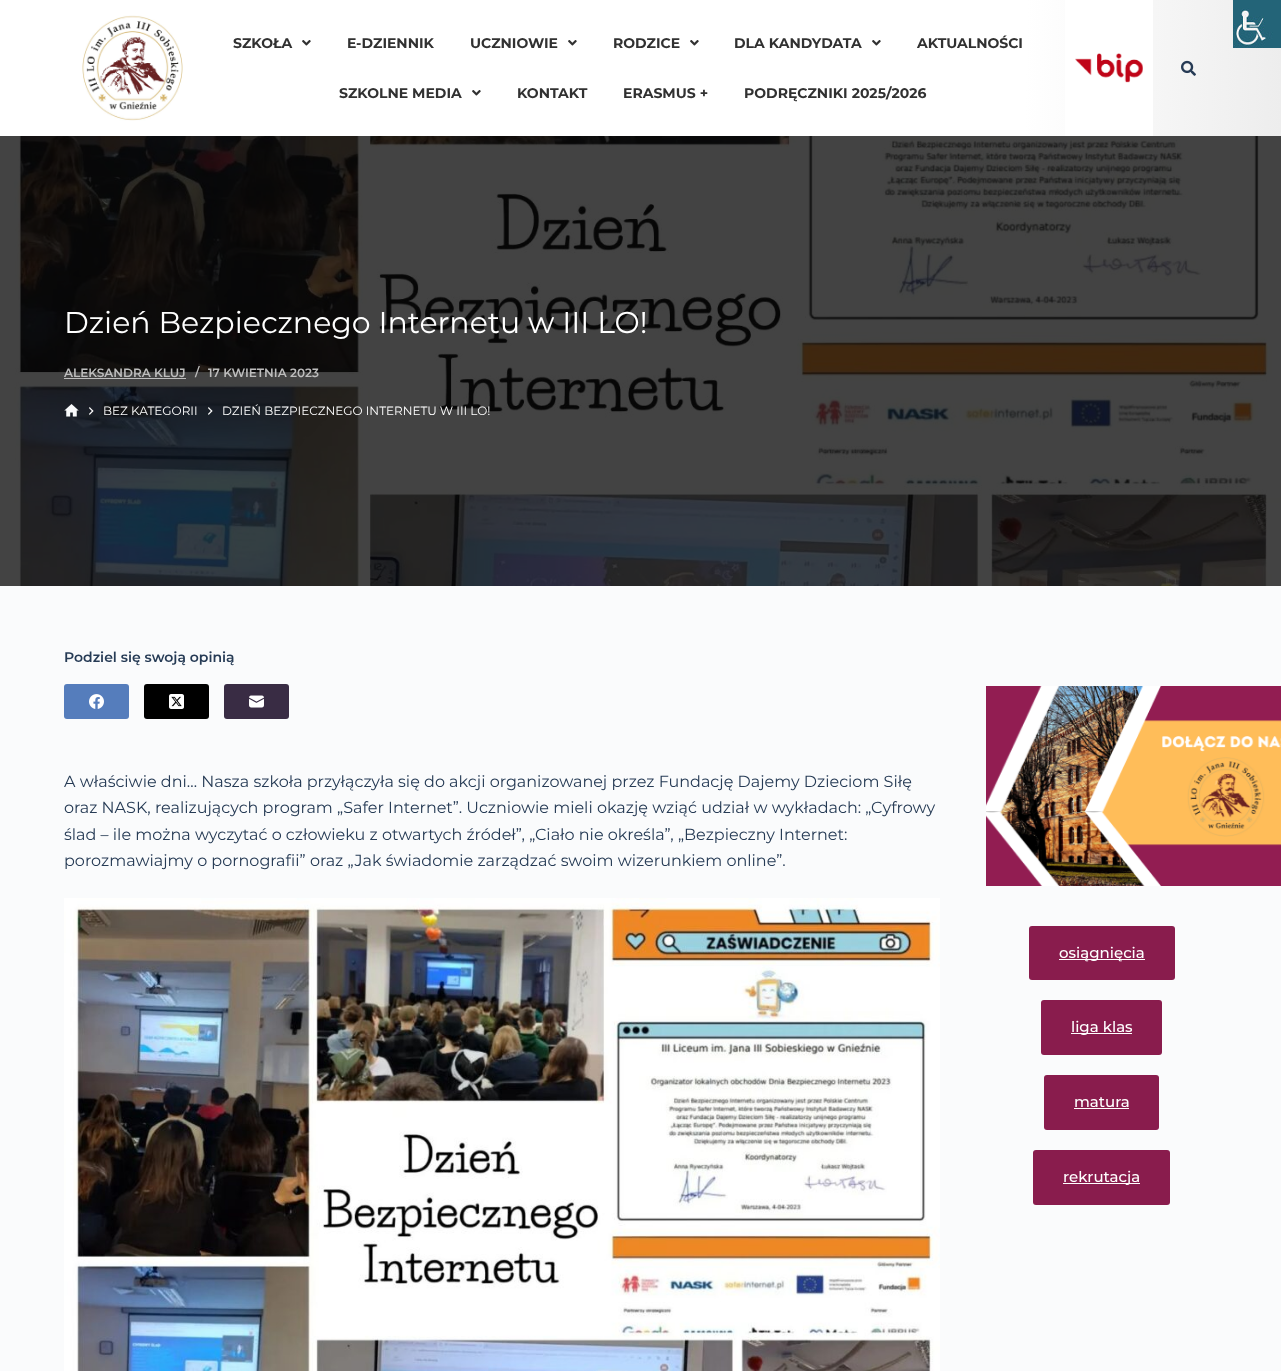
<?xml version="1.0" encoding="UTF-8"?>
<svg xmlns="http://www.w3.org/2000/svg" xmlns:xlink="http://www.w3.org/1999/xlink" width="1281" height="1371">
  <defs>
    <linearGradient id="g1" gradientUnits="userSpaceOnUse" x1="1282" y1="79" x2="-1" y2="57"><stop offset="0" stop-color="#ededed" /><stop offset="0.2" stop-color="#ffffff" /></linearGradient>
  </defs>
  <rect width="100%" height="100%" fill="#fafbfc" />
  <rect width="1281" height="136" fill="url(#g1)" />
  <image x="1233" y="0" width="48" height="48" xlink:href="image1.png" />
  <image x="82" y="15" width="101" height="106" xlink:href="image2.png" />
  <image x="302" y="40" width="9" height="6" xlink:href="image3.png" />
  <image x="568" y="40" width="9" height="6" xlink:href="image3.png" />
  <image x="690" y="40" width="9" height="6" xlink:href="image3.png" />
  <image x="872" y="40" width="9" height="6" xlink:href="image3.png" />
  <image x="472" y="90" width="9" height="6" xlink:href="image3.png" />
  <rect x="1065" width="88" height="136" fill="#ffffff" />
  <image x="1075" y="53" width="68" height="30" xlink:href="image4.png" />
  <image x="1181" y="60" width="15" height="16" xlink:href="image5.png" />
  <image x="0" y="136" width="1281" height="450" xlink:href="image6.png" />
  <rect x="64" y="378" width="122" height="1" fill="#bdbdbd" />
  <image x="64" y="404" width="15" height="13" xlink:href="image7.png" />
  <image x="89" y="407" width="5" height="8" xlink:href="image8.png" />
  <image x="208" y="407" width="5" height="8" xlink:href="image9.png" />
  <rect x="64" y="684" width="65" height="35" rx="3" fill="#557dbc" />
  <image x="89" y="694" width="15" height="15" xlink:href="image10.png" />
  <rect x="144" y="684" width="65" height="35" rx="3" fill="#000000" />
  <image x="169" y="694" width="15" height="15" xlink:href="image11.png" />
  <rect x="224" y="684" width="65" height="35" rx="3" fill="#392c44" />
  <image x="249" y="695" width="15" height="13" xlink:href="image12.png" />
  <image x="64" y="898" width="876" height="473" xlink:href="image13.png" />
  <image x="986" y="686" width="295" height="200" xlink:href="image14.png" />
  <rect x="1029" y="926" width="146" height="54" rx="3" fill="#891c4d" />
  <rect x="1059" y="959" width="86" height="1" fill="#ffffff" />
  <rect x="1041" y="1000" width="121" height="55" rx="3" fill="#891c4d" />
  <rect x="1071" y="1033" width="61" height="1" fill="#ffffff" />
  <rect x="1044" y="1075" width="115" height="55" rx="3" fill="#891c4d" />
  <rect x="1074" y="1108" width="55" height="1" fill="#ffffff" />
  <rect x="1033" y="1150" width="137" height="55" rx="3" fill="#891c4d" />
  <rect x="1063" y="1183" width="77" height="1" fill="#ffffff" />
  <text x="233" y="48" style="font-family: Montserrat; font-size: 14px; font-weight: bold; fill: #313131">SZKOŁA</text>
  <text x="347" y="48" style="font-family: Montserrat; font-size: 14px; font-weight: bold; fill: #313131">E-DZIENNIK</text>
  <text x="470" y="48" style="font-family: Montserrat; font-size: 14px; font-weight: bold; fill: #313131">UCZNIOWIE</text>
  <text x="613" y="48" style="font-family: Montserrat; font-size: 14px; font-weight: bold; fill: #313131">RODZICE</text>
  <text x="734" y="48" style="font-family: Montserrat; font-size: 14px; font-weight: bold; fill: #313131">DLA KANDYDATA</text>
  <text x="917" y="48" style="font-family: Montserrat; font-size: 14px; font-weight: bold; fill: #313131">AKTUALNOŚCI</text>
  <text x="339" y="98" style="font-family: Montserrat; font-size: 14px; font-weight: bold; fill: #313131">SZKOLNE MEDIA</text>
  <text x="517" y="98" style="font-family: Montserrat; font-size: 14px; font-weight: bold; fill: #313131">KONTAKT</text>
  <text x="623" y="98" style="font-family: Montserrat; font-size: 14px; font-weight: bold; fill: #313131">ERASMUS +</text>
  <text x="744" y="98" style="font-family: Montserrat; font-size: 14px; font-weight: bold; fill: #313131">PODRĘCZNIKI 2025/2026</text>
  <text x="64" y="333" style="font-family: Montserrat; font-size: 30px; fill: #ffffff">Dzień Bezpiecznego Internetu w III LO!</text>
  <text x="64" y="377" style="font-family: Montserrat; font-size: 12px; font-weight: 600; fill: #bdbdbd">ALEKSANDRA KLUJ</text>
  <text x="195" y="376" style="font-family: Montserrat; font-size: 12px; font-weight: 600; fill: #bdbdbd">/</text>
  <text x="208" y="377" style="font-family: Montserrat; font-size: 12px; font-weight: 600; fill: #bdbdbd">17 KWIETNIA 2023</text>
  <text x="103" y="415" style="font-family: Montserrat; font-size: 12px; fill: #ffffff">BEZ KATEGORII</text>
  <text x="222" y="415" style="font-family: Montserrat; font-size: 12px; fill: #ffffff">DZIEŃ BEZPIECZNEGO INTERNETU W III LO!</text>
  <text x="64" y="662" style="font-family: Montserrat; font-size: 14px; font-weight: 600; fill: #263b55">Podziel się swoją opinią</text>
  <text x="64" y="787" style="font-family: Montserrat; font-size: 16px; fill: #263b55">A właściwie dni… Nasza szkoła przyłączyła się do akcji organizowanej przez Fundację Dajemy Dzieciom Siłę</text>
  <text x="64" y="813" style="font-family: Montserrat; font-size: 16px; fill: #263b55">oraz NASK, realizujących program „Safer Internet”. Uczniowie mieli okazję wziąć udział w wykładach: „Cyfrowy</text>
  <text x="64" y="840" style="font-family: Montserrat; font-size: 16px; fill: #263b55">ślad – ile można wyczytać o człowieku z otwartych źródeł”, „Ciało nie określa”, „Bezpieczny Internet:</text>
  <text x="64" y="866" style="font-family: Montserrat; font-size: 16px; fill: #263b55">porozmawiajmy o pornografii” oraz „Jak świadomie zarządzać swoim wizerunkiem online”.</text>
  <text x="1059" y="958" style="font-family: Montserrat; font-size: 15px; font-weight: 500; fill: #ffffff">osiągnięcia</text>
  <text x="1071" y="1032" style="font-family: Montserrat; font-size: 15px; font-weight: 500; fill: #ffffff">liga klas</text>
  <text x="1074" y="1107" style="font-family: Montserrat; font-size: 15px; font-weight: 500; fill: #ffffff">matura</text>
  <text x="1063" y="1182" style="font-family: Montserrat; font-size: 15px; font-weight: 500; fill: #ffffff">rekrutacja</text>
</svg>
